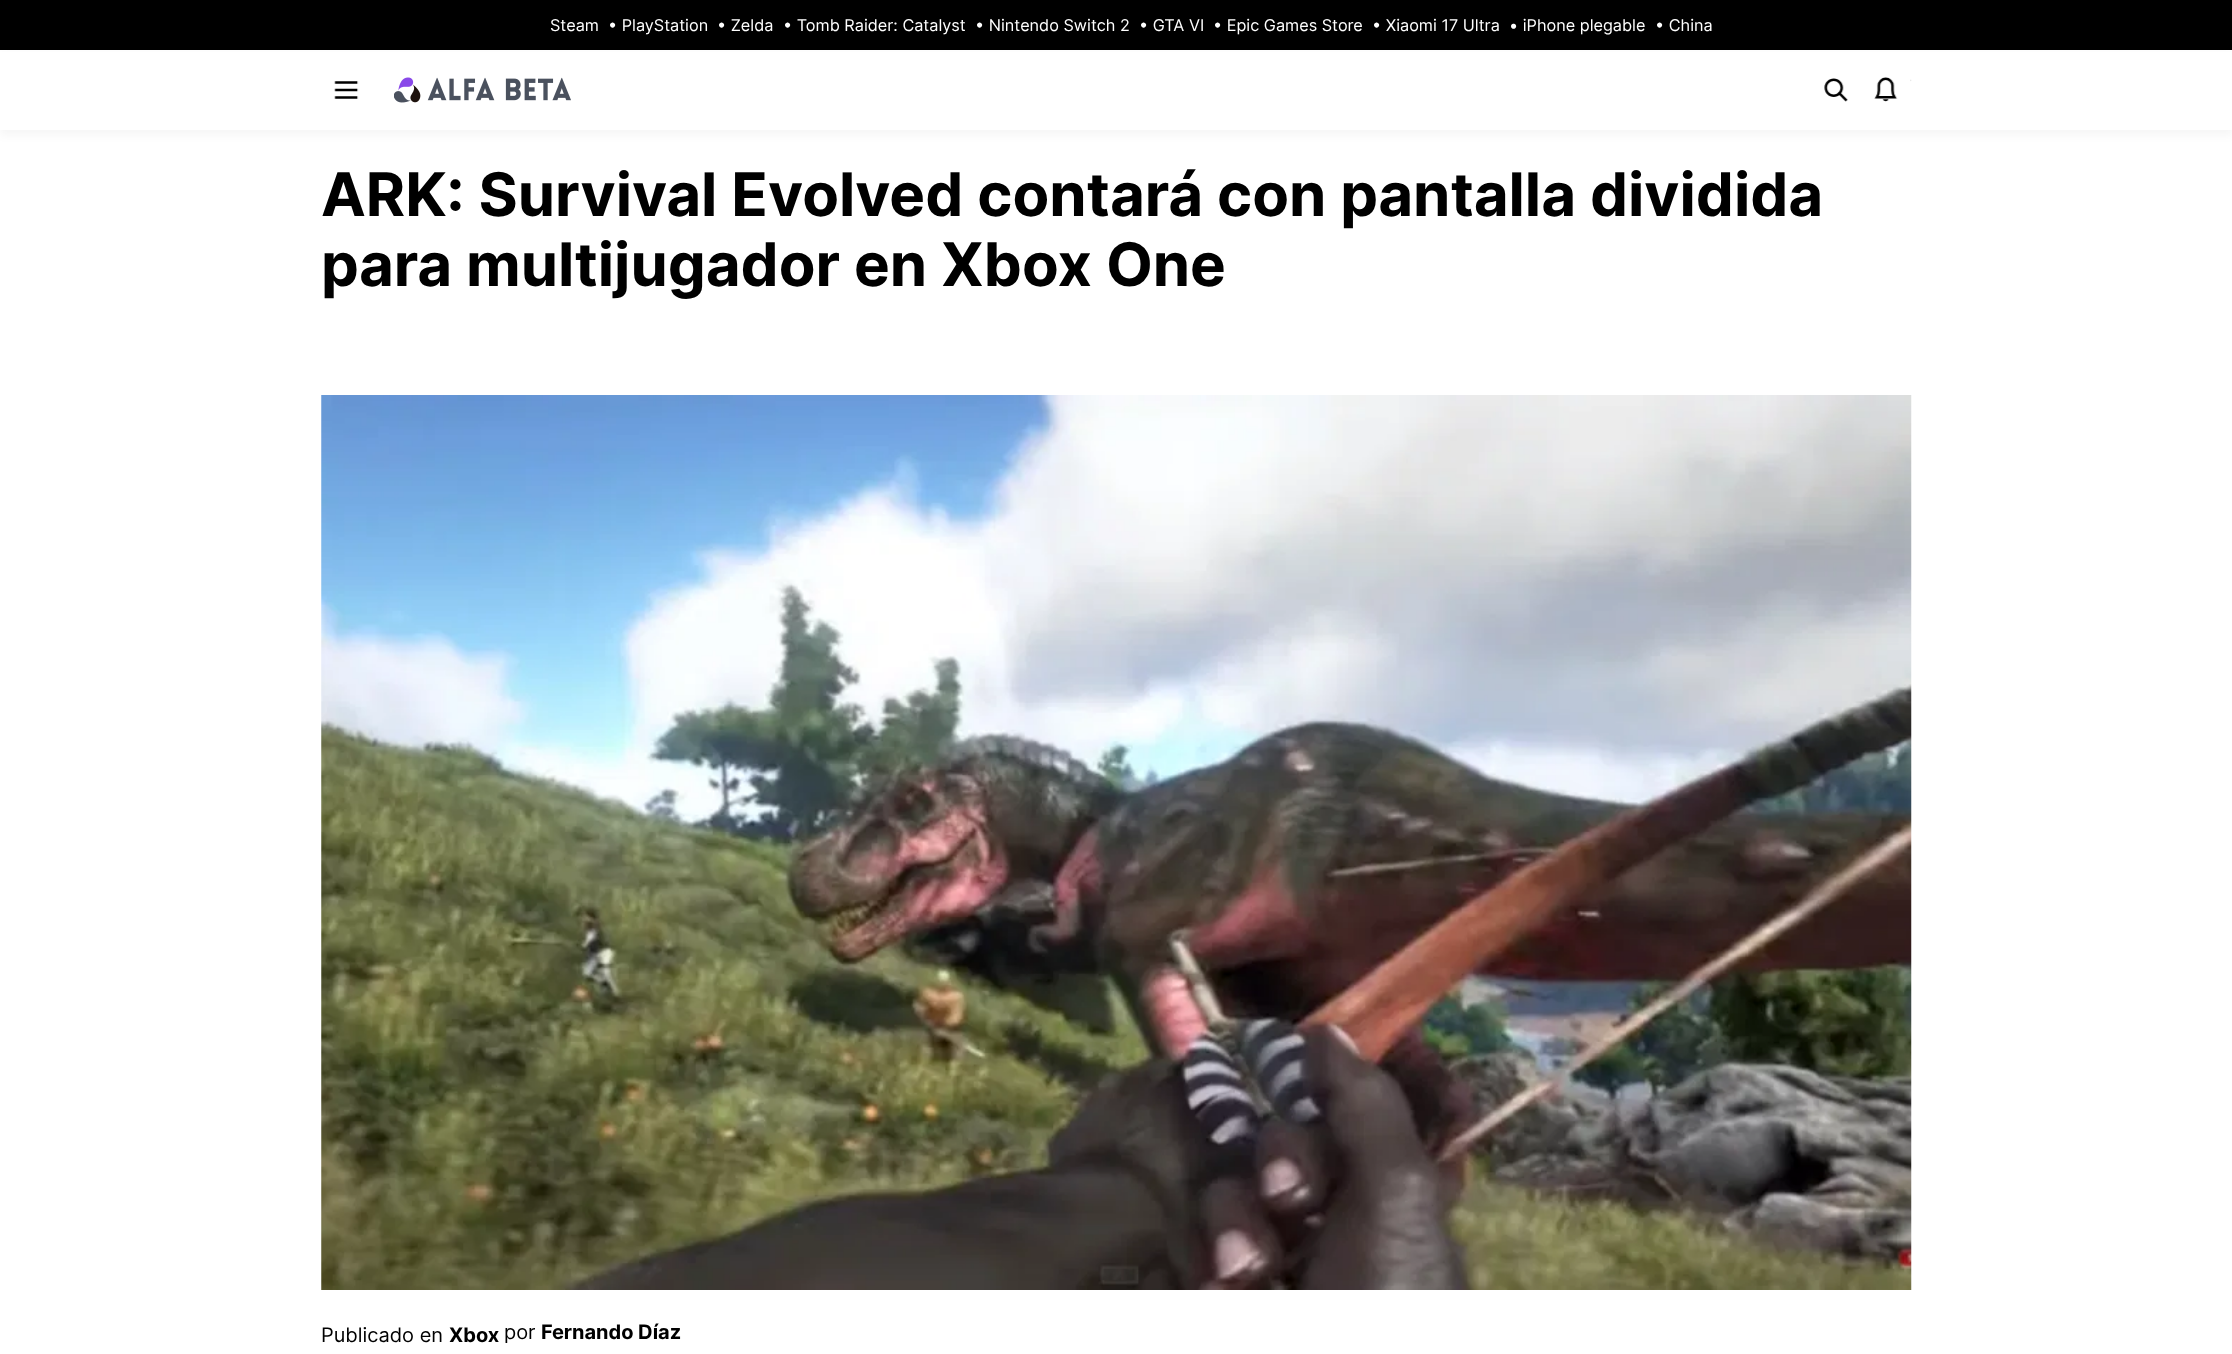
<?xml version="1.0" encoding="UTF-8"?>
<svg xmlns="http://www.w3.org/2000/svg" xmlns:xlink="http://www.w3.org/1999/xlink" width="2232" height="1354">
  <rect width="100%" height="100%" fill="#ffffff" />
  <rect width="2232" height="50" fill="#000000" />
  <rect y="55" width="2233" height="80" fill="#000000" fill-opacity="0.04" filter="blur(5px)" />
  <rect y="52" width="2232" height="78" fill="#ffffff" />
  <image x="334" y="81" width="25" height="18" xlink:href="image1.png" />
  <image x="394" y="77" width="177" height="26" xlink:href="image2.png" />
  <image x="1824" y="78" width="24" height="24" xlink:href="image3.png" />
  <image x="1874" y="77" width="38" height="25" xlink:href="image4.png" />
  <image x="321" y="395" width="1591" height="895" xlink:href="image5.png" />
  <text x="550" y="31" style="font-family: Inter; font-size: 16.25px; fill: #ffffff">Steam</text>
  <text x="608" y="31" style="font-family: Inter; font-size: 16.25px; fill: #ffffff">• PlayStation</text>
  <text x="717" y="31" style="font-family: Inter; font-size: 16.25px; fill: #ffffff">• Zelda</text>
  <text x="783" y="31" style="font-family: Inter; font-size: 16.25px; fill: #ffffff">• Tomb Raider: Catalyst</text>
  <text x="975" y="31" style="font-family: Inter; font-size: 16.25px; fill: #ffffff">• Nintendo Switch 2</text>
  <text x="1139" y="31" style="font-family: Inter; font-size: 16.25px; fill: #ffffff">• GTA VI</text>
  <text x="1213" y="31" style="font-family: Inter; font-size: 16.25px; fill: #ffffff">• Epic Games Store</text>
  <text x="1372" y="31" style="font-family: Inter; font-size: 16.25px; fill: #ffffff">• Xiaomi 17 Ultra</text>
  <text x="1509" y="31" style="font-family: Inter; font-size: 16.25px; fill: #ffffff">• iPhone plegable</text>
  <text x="1655" y="31" style="font-family: Inter; font-size: 16.25px; fill: #ffffff">• China</text>
  <text x="321" y="216" style="font-family: Inter; font-size: 60px; font-weight: bold; fill: #000000">ARK: Survival Evolved contará con pantalla dividida</text>
  <text x="321" y="286" style="font-family: Inter; font-size: 60px; font-weight: bold; fill: #000000">para multijugador en Xbox One</text>
  <text x="321" y="1342" style="font-family: Inter; font-size: 20px; fill: #000000">Publicado en</text>
  <text x="449" y="1342" style="font-family: Inter; font-size: 20px; font-weight: bold; fill: #000000">Xbox</text>
  <text x="504" y="1339" style="font-family: Inter; font-size: 20px; fill: #000000">por</text>
  <text x="541" y="1339" style="font-family: Inter; font-size: 20px; font-weight: bold; fill: #000000">Fernando Díaz</text>
</svg>
